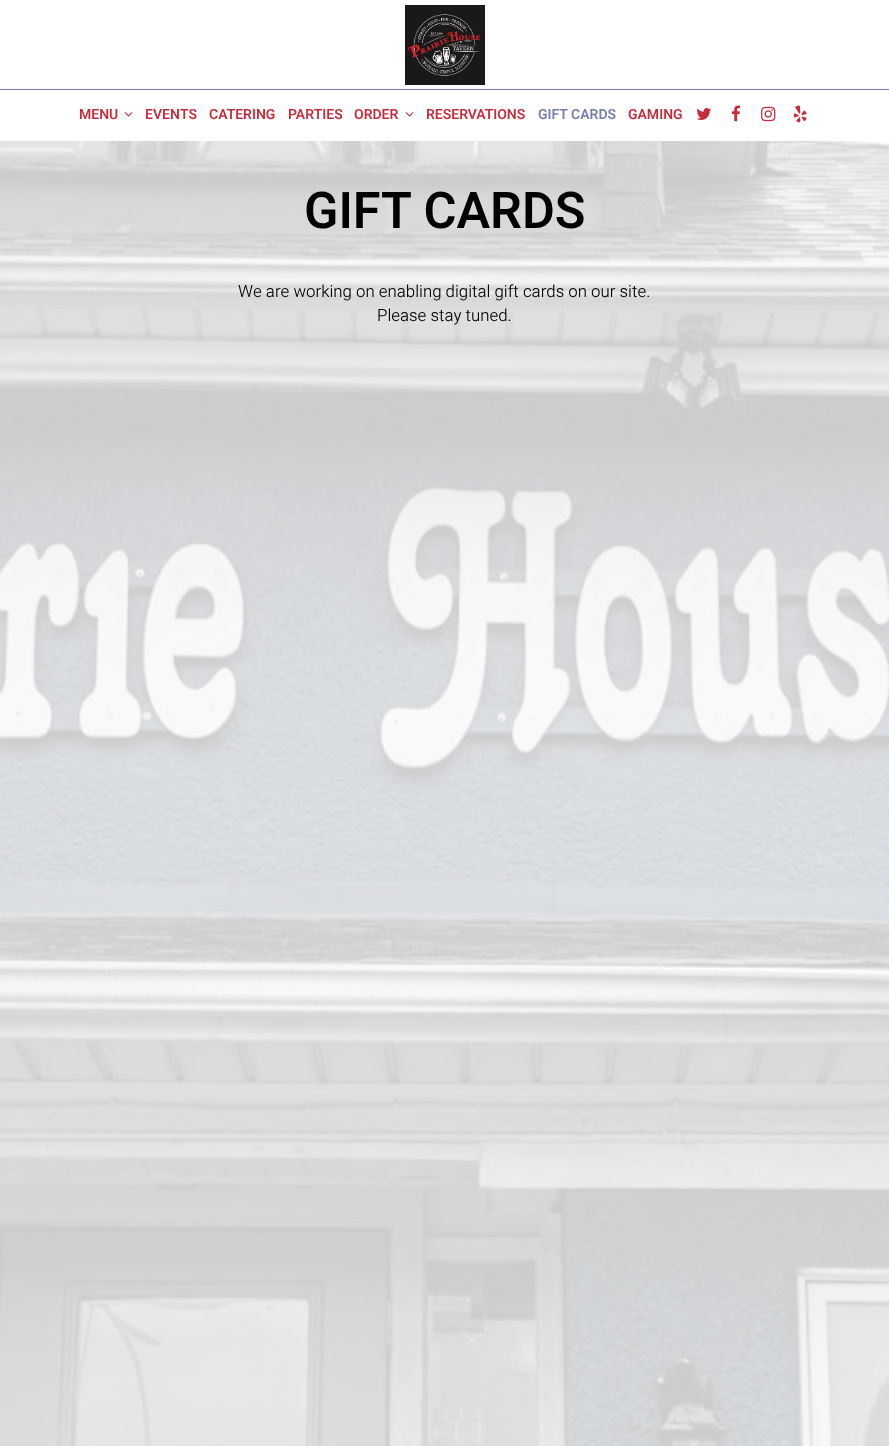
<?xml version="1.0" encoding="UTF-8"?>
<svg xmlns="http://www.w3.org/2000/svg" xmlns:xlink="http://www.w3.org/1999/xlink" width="889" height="1446">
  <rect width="100%" height="100%" fill="#ffffff" />
  <rect y="89" width="889" height="1" fill="#757bad" />
  <image x="405" y="5" width="80" height="80" xlink:href="image1.png" />
  <image x="124" y="112" width="9" height="5" xlink:href="image2.png" />
  <image x="405" y="112" width="9" height="5" xlink:href="image2.png" />
  <image x="696" y="108" width="15" height="12" xlink:href="image3.png" />
  <image x="731" y="105" width="9" height="17" xlink:href="image4.png" />
  <image x="761" y="106" width="15" height="16" xlink:href="image5.png" />
  <image x="793" y="105" width="14" height="18" xlink:href="image6.png" />
  <image x="0" y="141" width="889" height="1305" xlink:href="image7.png" />
  <text x="79" y="119" style="font-family: Heebo; font-size: 14px; font-weight: 600; fill: #c62b39">MENU</text>
  <text x="145" y="119" style="font-family: Heebo; font-size: 14px; font-weight: 600; fill: #c62b39">EVENTS</text>
  <text x="209" y="119" style="font-family: Heebo; font-size: 14px; font-weight: 600; fill: #c62b39">CATERING</text>
  <text x="288" y="119" style="font-family: Heebo; font-size: 14px; font-weight: 600; fill: #c62b39">PARTIES</text>
  <text x="354" y="119" style="font-family: Heebo; font-size: 14px; font-weight: 600; fill: #c62b39">ORDER</text>
  <text x="426" y="119" style="font-family: Heebo; font-size: 14px; font-weight: 600; fill: #c62b39">RESERVATIONS</text>
  <text x="538" y="119" style="font-family: Heebo; font-size: 14px; font-weight: 600; fill: #757bad">GIFT CARDS</text>
  <text x="628" y="119" style="font-family: Heebo; font-size: 14px; font-weight: 600; fill: #c62b39">GAMING</text>
  <text x="304" y="228" style="font-family: Heebo; font-size: 50.5px; font-weight: 600; fill: #000000">GIFT CARDS</text>
  <text x="238" y="297" style="font-family: Heebo; font-size: 16.8px; font-weight: 300; fill: #000000">We are working on enabling digital gift cards on our site.</text>
  <text x="377" y="321" style="font-family: Heebo; font-size: 16.8px; font-weight: 300; fill: #000000">Please stay tuned.</text>
</svg>
